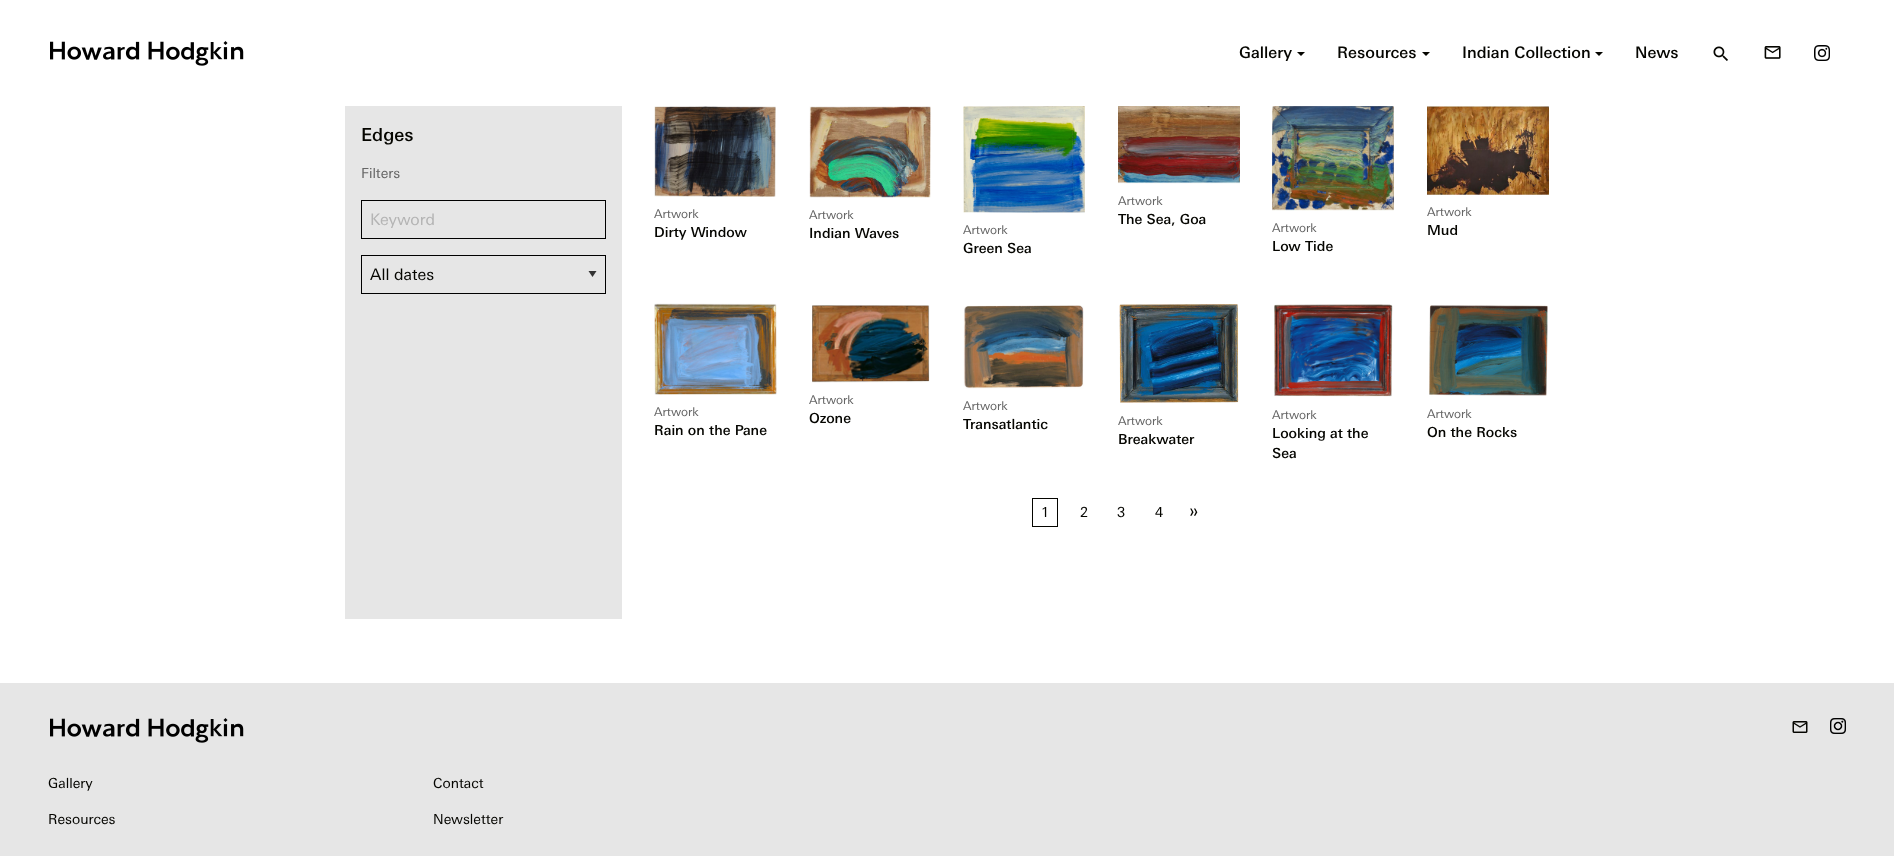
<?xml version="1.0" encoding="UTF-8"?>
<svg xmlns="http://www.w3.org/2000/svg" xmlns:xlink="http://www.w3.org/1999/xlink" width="1894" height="856">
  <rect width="100%" height="100%" fill="#ffffff" />
  <image x="50" y="41" width="194" height="25" xlink:href="image1.png" />
  <path d="M 1297 52 h 8 l -4 4 z" fill="#050500" />
  <path d="M 1422 52 h 8 l -4 4 z" fill="#050500" />
  <path d="M 1595 52 h 8 l -4 4 z" fill="#050500" />
  <image x="1713" y="46" width="15" height="15" xlink:href="image2.png" />
  <image x="1764" y="46" width="17" height="13" xlink:href="image3.png" />
  <image x="1814" y="45" width="16" height="16" xlink:href="image4.png" />
  <rect x="345" y="106" width="277" height="513" fill="#e6e6e6" />
  <rect x="361.5" y="200.5" width="244" height="38" fill="none" stroke="#000000" />
  <path d="M 588.5 271 h 8 l -4 6 z" fill="#333333" />
  <rect x="361.5" y="255.5" width="244" height="38" fill="none" stroke="#000000" />
  <image x="654" y="106" width="122" height="91" xlink:href="image5.png" />
  <image x="809" y="106" width="122" height="92" xlink:href="image6.png" />
  <image x="963" y="106" width="122" height="107" xlink:href="image7.png" />
  <image x="1118" y="106" width="122" height="78" xlink:href="image8.png" />
  <image x="1272" y="106" width="122" height="105" xlink:href="image9.png" />
  <image x="1427" y="106" width="122" height="89" xlink:href="image10.png" />
  <image x="654" y="303" width="123" height="92" xlink:href="image11.png" />
  <image x="812" y="305" width="118" height="78" xlink:href="image12.png" />
  <image x="963" y="305" width="121" height="84" xlink:href="image13.png" />
  <image x="1119" y="304" width="120" height="99" xlink:href="image14.png" />
  <image x="1274" y="304" width="119" height="93" xlink:href="image15.png" />
  <image x="1429" y="305" width="119" height="91" xlink:href="image16.png" />
  <rect x="1032.5" y="498.5" width="25" height="28" fill="none" stroke="#050500" />
  <rect y="683" width="1894" height="173" fill="#e6e6e6" />
  <image x="50" y="718" width="194" height="25" xlink:href="image17.png" />
  <image x="1792" y="721" width="16" height="12" xlink:href="image18.png" />
  <image x="1830" y="718" width="16" height="16" xlink:href="image19.png" />
  <text x="1239" y="58" style="font-family: 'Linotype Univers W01'; font-size: 16px; font-weight: 500; fill: #050500">Gallery</text>
  <text x="1337" y="58" style="font-family: 'Linotype Univers W01'; font-size: 16px; font-weight: 500; fill: #050500">Resources</text>
  <text x="1462" y="58" style="font-family: 'Linotype Univers W01'; font-size: 16px; font-weight: 500; fill: #050500">Indian Collection</text>
  <text x="1635" y="58" style="font-family: 'Linotype Univers W01'; font-size: 16px; font-weight: 500; fill: #050500">News</text>
  <text x="361" y="141" style="font-family: 'Linotype Univers W01'; font-size: 18px; font-weight: 500; fill: #050500">Edges</text>
  <text x="361" y="178" style="font-family: 'Linotype Univers W01'; font-size: 14px; fill: #666666">Filters</text>
  <text x="370" y="225" style="font-family: 'Linotype Univers W01'; font-size: 16px; fill: #b4b4b4">Keyword</text>
  <text x="370" y="280" style="font-family: 'Linotype Univers W01'; font-size: 16px; fill: #050500">All dates</text>
  <text x="654" y="218" style="font-family: 'Linotype Univers W01'; font-size: 12px; fill: #666666">Artwork</text>
  <text x="654" y="237" style="font-family: 'Linotype Univers W01'; font-size: 14px; font-weight: 500; fill: #050500">Dirty Window</text>
  <text x="809" y="219" style="font-family: 'Linotype Univers W01'; font-size: 12px; fill: #666666">Artwork</text>
  <text x="809" y="238" style="font-family: 'Linotype Univers W01'; font-size: 14px; font-weight: 500; fill: #050500">Indian Waves</text>
  <text x="963" y="234" style="font-family: 'Linotype Univers W01'; font-size: 12px; fill: #666666">Artwork</text>
  <text x="963" y="253" style="font-family: 'Linotype Univers W01'; font-size: 14px; font-weight: 500; fill: #050500">Green Sea</text>
  <text x="1118" y="205" style="font-family: 'Linotype Univers W01'; font-size: 12px; fill: #666666">Artwork</text>
  <text x="1118" y="224" style="font-family: 'Linotype Univers W01'; font-size: 14px; font-weight: 500; fill: #050500">The Sea, Goa</text>
  <text x="1272" y="232" style="font-family: 'Linotype Univers W01'; font-size: 12px; fill: #666666">Artwork</text>
  <text x="1272" y="251" style="font-family: 'Linotype Univers W01'; font-size: 14px; font-weight: 500; fill: #050500">Low Tide</text>
  <text x="1427" y="216" style="font-family: 'Linotype Univers W01'; font-size: 12px; fill: #666666">Artwork</text>
  <text x="1427" y="235" style="font-family: 'Linotype Univers W01'; font-size: 14px; font-weight: 500; fill: #050500">Mud</text>
  <text x="654" y="416" style="font-family: 'Linotype Univers W01'; font-size: 12px; fill: #666666">Artwork</text>
  <text x="654" y="435" style="font-family: 'Linotype Univers W01'; font-size: 14px; font-weight: 500; fill: #050500">Rain on the Pane</text>
  <text x="809" y="404" style="font-family: 'Linotype Univers W01'; font-size: 12px; fill: #666666">Artwork</text>
  <text x="809" y="423" style="font-family: 'Linotype Univers W01'; font-size: 14px; font-weight: 500; fill: #050500">Ozone</text>
  <text x="963" y="410" style="font-family: 'Linotype Univers W01'; font-size: 12px; fill: #666666">Artwork</text>
  <text x="963" y="429" style="font-family: 'Linotype Univers W01'; font-size: 14px; font-weight: 500; fill: #050500">Transatlantic</text>
  <text x="1118" y="425" style="font-family: 'Linotype Univers W01'; font-size: 12px; fill: #666666">Artwork</text>
  <text x="1118" y="444" style="font-family: 'Linotype Univers W01'; font-size: 14px; font-weight: 500; fill: #050500">Breakwater</text>
  <text x="1272" y="419" style="font-family: 'Linotype Univers W01'; font-size: 12px; fill: #666666">Artwork</text>
  <text x="1272" y="438" style="font-family: 'Linotype Univers W01'; font-size: 14px; font-weight: 500; fill: #050500">Looking at the</text>
  <text x="1272" y="458" style="font-family: 'Linotype Univers W01'; font-size: 14px; font-weight: 500; fill: #050500">Sea</text>
  <text x="1427" y="418" style="font-family: 'Linotype Univers W01'; font-size: 12px; fill: #666666">Artwork</text>
  <text x="1427" y="437" style="font-family: 'Linotype Univers W01'; font-size: 14px; font-weight: 500; fill: #050500">On the Rocks</text>
  <text x="1041" y="517" style="font-family: 'Linotype Univers W01'; font-size: 14px; fill: #050500">1</text>
  <text x="1080" y="517" style="font-family: 'Linotype Univers W01'; font-size: 14px; fill: #050500">2</text>
  <text x="1117" y="517" style="font-family: 'Linotype Univers W01'; font-size: 14px; fill: #050500">3</text>
  <text x="1155" y="517" style="font-family: 'Linotype Univers W01'; font-size: 14px; fill: #050500">4</text>
  <text x="1189" y="517" style="font-family: 'Linotype Univers W01'; font-size: 19px; fill: #050500">»</text>
  <text x="48" y="788" style="font-family: 'Linotype Univers W01'; font-size: 14px; fill: #050500">Gallery</text>
  <text x="48" y="824" style="font-family: 'Linotype Univers W01'; font-size: 14px; fill: #050500">Resources</text>
  <text x="433" y="788" style="font-family: 'Linotype Univers W01'; font-size: 14px; fill: #050500">Contact</text>
  <text x="433" y="824" style="font-family: 'Linotype Univers W01'; font-size: 14px; fill: #050500">Newsletter</text>
</svg>
